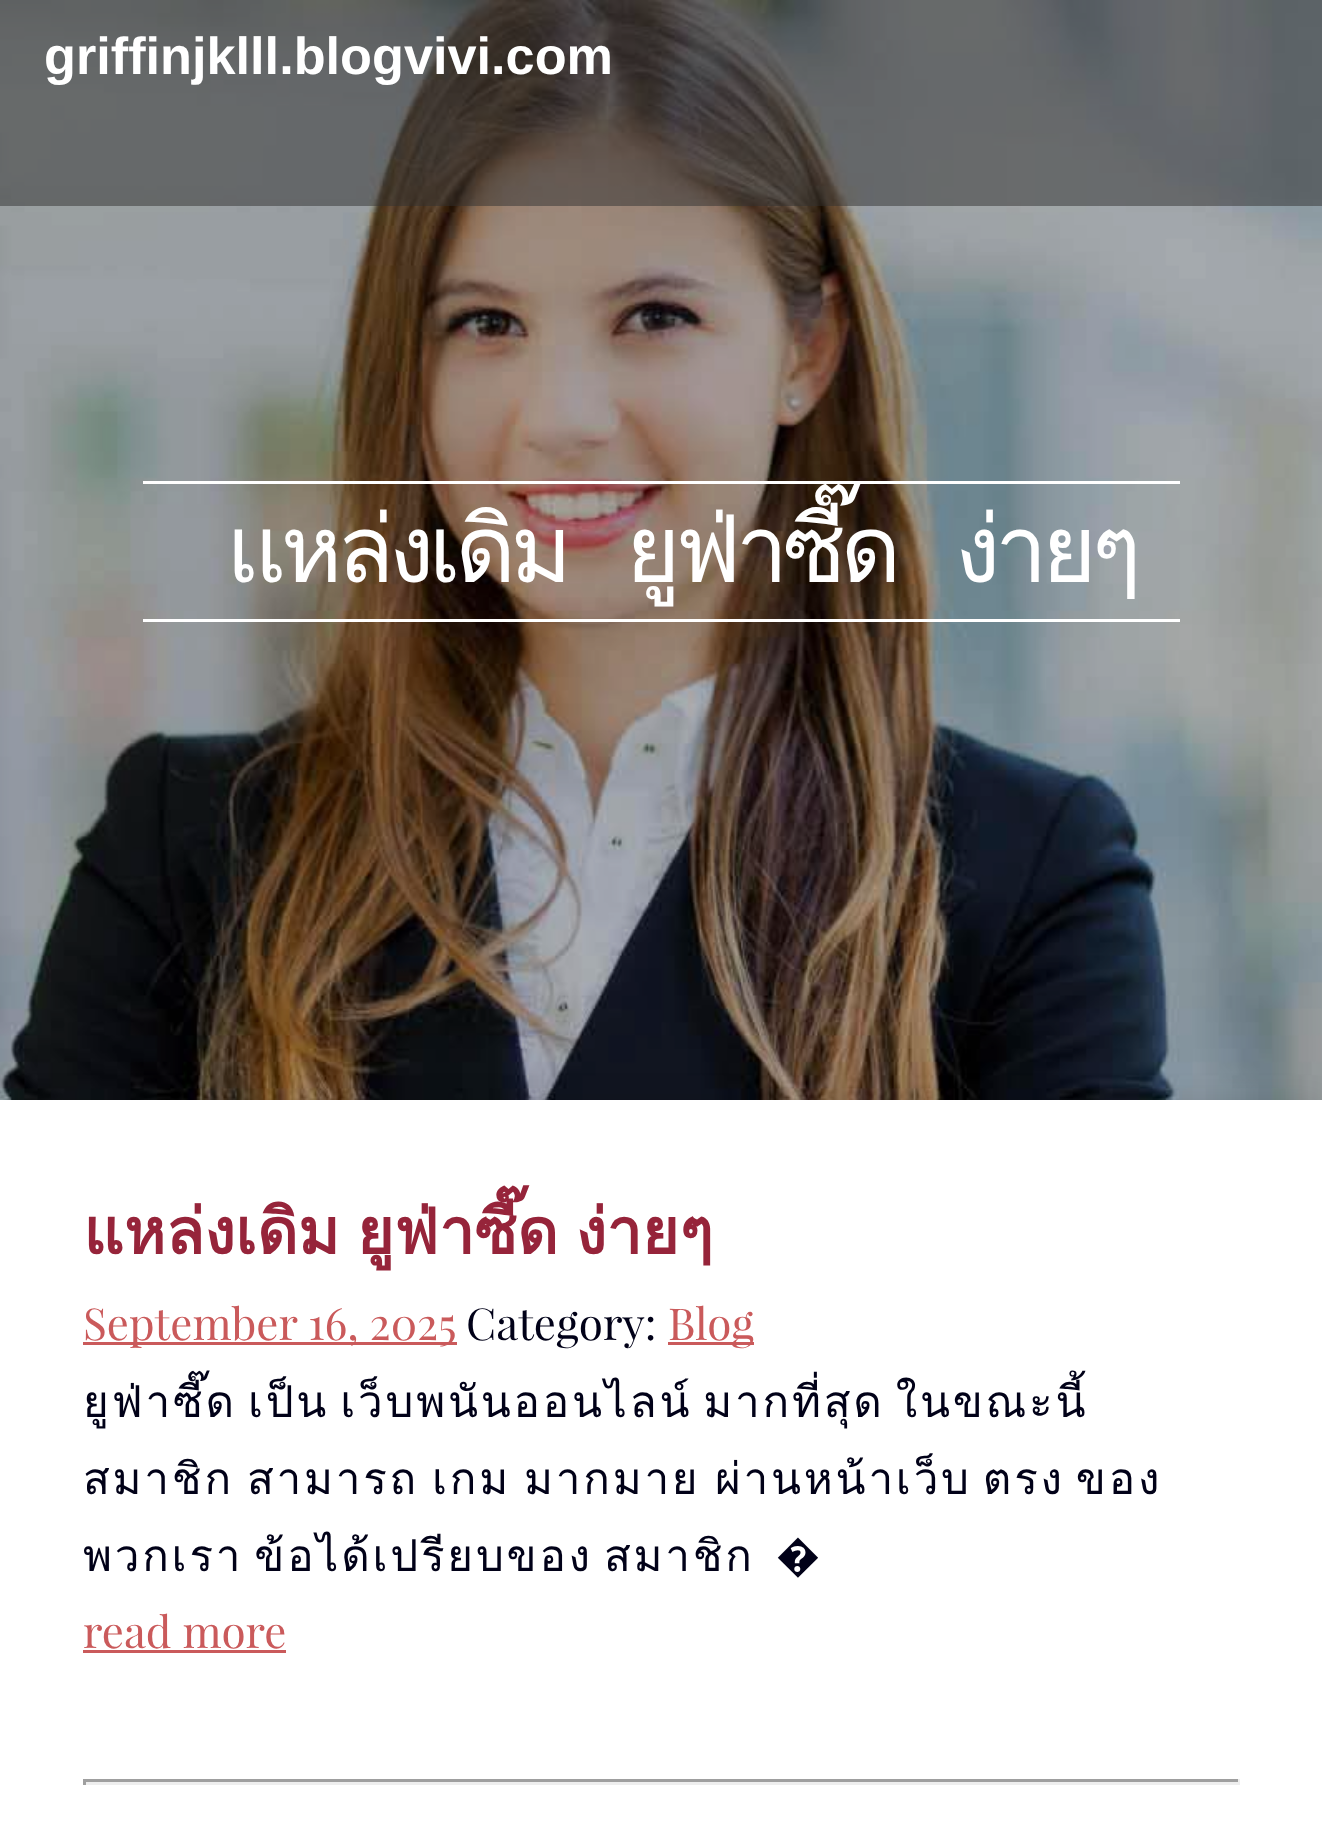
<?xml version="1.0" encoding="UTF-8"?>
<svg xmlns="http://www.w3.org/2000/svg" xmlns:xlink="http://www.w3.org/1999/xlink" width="1322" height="1826">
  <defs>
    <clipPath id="clip1"><rect x="143" y="484" width="1037" height="135" /></clipPath>
    <clipPath id="clip2"><rect x="83" y="1183" width="1157" height="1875" /></clipPath>
  </defs>
  <rect width="100%" height="100%" fill="#ffffff" />
  <image x="0" y="0" width="1322" height="1100" xlink:href="image1.png" />
  <rect width="1322" height="206" fill="#2f2f2f" fill-opacity="0.5" />
  <rect x="143" y="481" width="1037" height="3" fill="#ffffff" />
  <rect x="143" y="619" width="1037" height="3" fill="#ffffff" />
  <rect y="1100" width="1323" height="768" fill="#000000" fill-opacity="0.1" filter="blur(14px)" />
  <rect y="1100" width="1322" height="726" fill="#ffffff" />
  <rect x="83" y="1342" width="374" height="3" fill="#ca5a5b" />
  <rect x="668" y="1342" width="86" height="3" fill="#ca5a5b" />
  <rect x="83" y="1650" width="203" height="3" fill="#ca5a5b" />
  <rect x="83" y="1779" width="1157" height="3" fill="#9f9f9f" />
  <rect x="1238" y="1779" width="2" height="6" fill="#eeeeee" />
  <rect x="83" y="1782" width="1157" height="3" fill="#eeeeee" />
  <rect x="83" y="1779" width="3" height="6" fill="#9f9f9f" />
  <text x="44" y="74" style="font-family: Liberation Sans; font-size: 52.25px; font-weight: bold; fill: #ffffff">griffinjklll.blogvivi.com</text>
  <g clip-path="url(#clip1)">
    <text x="226" y="582" word-spacing="33" style="font-family: Loma; font-size: 93.5px; letter-spacing: -5.5px; fill: #ffffff">แหล่งเดิม ยูฟ่าซี๊ด ง่ายๆ</text>
  </g>
  <text x="83" y="1254" word-spacing="-4" style="font-family: Loma; font-size: 63.25px; font-weight: bold; fill: #96243a">แหล่งเดิม ยูฟ่าซี๊ด ง่ายๆ</text>
  <text x="83" y="1340" style="font-family: Playfair Display; font-size: 44px; fill: #ca5a5b">September 16, 2025</text>
  <text x="466" y="1340" style="font-family: Playfair Display; font-size: 44px; fill: #010118">Category:</text>
  <text x="668" y="1340" style="font-family: Playfair Display; font-size: 44px; fill: #ca5a5b">Blog</text>
  <g clip-path="url(#clip2)">
    <text x="83" y="1417" word-spacing="-6.5" style="font-family: Loma; font-size: 44px; letter-spacing: 2.75px; fill: #010118">ยูฟ่าซี๊ด เป็น เว็บพนันออนไลน์ มากที่สุด ในขณะนี้</text>
  </g>
  <text x="83" y="1494" word-spacing="-4.5" style="font-family: Loma; font-size: 44px; letter-spacing: 2.75px; fill: #010118">สมาชิก สามารถ เกม มากมาย</text>
  <text x="715" y="1494" word-spacing="-6.5" style="font-family: Loma; font-size: 44px; letter-spacing: 2.75px; fill: #010118">ผ่านหน้าเว็บ ตรง ของ</text>
  <text x="83" y="1571" word-spacing="-6.5" style="font-family: Loma; font-size: 44px; letter-spacing: 2.75px; fill: #010118">พวกเรา ข้อได้เปรียบของ สมาชิก</text>
  <text x="776" y="1571" style="font-family: Noto Sans; font-size: 44px; letter-spacing: 2.75px; fill: #010118">�</text>
  <text x="83" y="1648" style="font-family: Playfair Display; font-size: 44px; fill: #ca5a5b">read more</text>
</svg>
